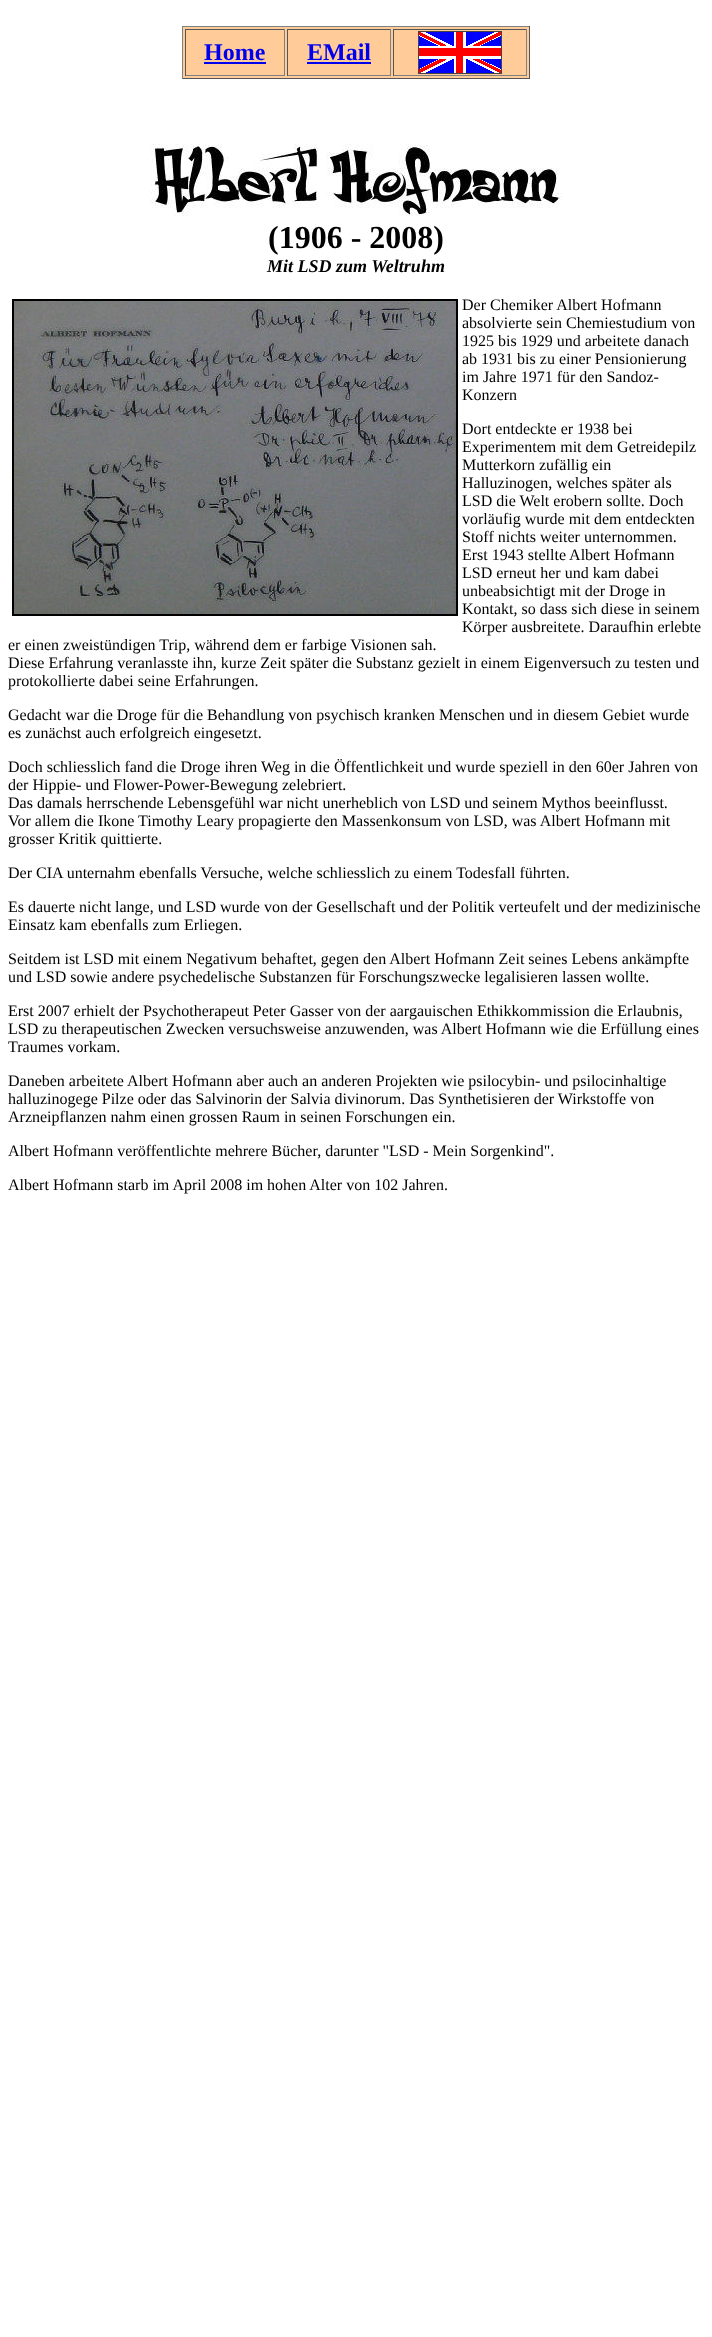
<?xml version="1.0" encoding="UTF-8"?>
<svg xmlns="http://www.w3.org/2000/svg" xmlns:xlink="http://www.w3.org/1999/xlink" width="712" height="2337">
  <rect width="100%" height="100%" fill="#ffffff" />
  <rect x="183" y="27" width="346" height="51" fill="#ffcc99" />
  <rect x="182" y="26" width="348" height="1" fill="#808080" />
  <rect x="529" y="26" width="1" height="53" fill="#555555" />
  <rect x="182" y="78" width="348" height="1" fill="#555555" />
  <rect x="182" y="26" width="1" height="53" fill="#808080" />
  <rect x="185" y="29" width="100" height="1" fill="#555555" />
  <rect x="284" y="29" width="1" height="47" fill="#808080" />
  <rect x="185" y="75" width="100" height="1" fill="#808080" />
  <rect x="185" y="29" width="1" height="47" fill="#555555" />
  <rect x="204" y="62" width="62" height="2" fill="#0000ee" />
  <rect x="287" y="29" width="104" height="1" fill="#555555" />
  <rect x="390" y="29" width="1" height="47" fill="#808080" />
  <rect x="287" y="75" width="104" height="1" fill="#808080" />
  <rect x="287" y="29" width="1" height="47" fill="#555555" />
  <rect x="307" y="62" width="64" height="2" fill="#0000ee" />
  <rect x="393" y="29" width="134" height="1" fill="#555555" />
  <rect x="526" y="29" width="1" height="47" fill="#808080" />
  <rect x="393" y="75" width="134" height="1" fill="#808080" />
  <rect x="393" y="29" width="1" height="47" fill="#555555" />
  <image x="418" y="31" width="84" height="43" xlink:href="image1.png" />
  <image x="150" y="144" width="412" height="72" xlink:href="image2.png" />
  <rect x="13" y="300" width="444" height="315" fill="none" stroke="#000000" stroke-width="2" />
  <image x="14" y="301" width="442" height="313" xlink:href="image3.png" />
  <text x="204" y="60" style="font-family: Liberation Serif; font-size: 24px; font-weight: bold; fill: #0000ee">Home</text>
  <text x="307" y="60" style="font-family: Liberation Serif; font-size: 24px; font-weight: bold; fill: #0000ee">EMail</text>
  <text x="268" y="248" style="font-family: Liberation Serif; font-size: 32px; font-weight: bold; fill: #000000">(1906 - 2008)</text>
  <text x="267" y="272" style="font-family: Liberation Serif; font-size: 18px; font-weight: bold; font-style: italic; fill: #000000">Mit LSD zum Weltruhm</text>
  <text x="462" y="310" style="font-family: Liberation Serif; font-size: 16px; fill: #000000">Der Chemiker Albert Hofmann</text>
  <text x="462" y="328" style="font-family: Liberation Serif; font-size: 16px; fill: #000000">absolvierte sein Chemiestudium von</text>
  <text x="462" y="346" style="font-family: Liberation Serif; font-size: 16px; fill: #000000">1925 bis 1929 und arbeitete danach</text>
  <text x="462" y="364" style="font-family: Liberation Serif; font-size: 16px; fill: #000000">ab 1931 bis zu einer Pensionierung</text>
  <text x="462" y="382" style="font-family: Liberation Serif; font-size: 16px; fill: #000000">im Jahre 1971 für den Sandoz-</text>
  <text x="462" y="400" style="font-family: Liberation Serif; font-size: 16px; fill: #000000">Konzern</text>
  <text x="462" y="434" style="font-family: Liberation Serif; font-size: 16px; fill: #000000">Dort entdeckte er 1938 bei</text>
  <text x="462" y="452" style="font-family: Liberation Serif; font-size: 16px; fill: #000000">Experimentem mit dem Getreidepilz</text>
  <text x="462" y="470" style="font-family: Liberation Serif; font-size: 16px; fill: #000000">Mutterkorn zufällig ein</text>
  <text x="462" y="488" style="font-family: Liberation Serif; font-size: 16px; fill: #000000">Halluzinogen, welches später als</text>
  <text x="462" y="506" style="font-family: Liberation Serif; font-size: 16px; fill: #000000">LSD die Welt erobern sollte. Doch</text>
  <text x="462" y="524" style="font-family: Liberation Serif; font-size: 16px; fill: #000000">vorläufig wurde mit dem entdeckten</text>
  <text x="462" y="542" style="font-family: Liberation Serif; font-size: 16px; fill: #000000">Stoff nichts weiter unternommen.</text>
  <text x="462" y="560" style="font-family: Liberation Serif; font-size: 16px; fill: #000000">Erst 1943 stellte Albert Hofmann</text>
  <text x="462" y="578" style="font-family: Liberation Serif; font-size: 16px; fill: #000000">LSD erneut her und kam dabei</text>
  <text x="462" y="596" style="font-family: Liberation Serif; font-size: 16px; fill: #000000">unbeabsichtigt mit der Droge in</text>
  <text x="462" y="614" style="font-family: Liberation Serif; font-size: 16px; fill: #000000">Kontakt, so dass sich diese in seinem</text>
  <text x="462" y="632" style="font-family: Liberation Serif; font-size: 16px; fill: #000000">Körper ausbreitete. Daraufhin erlebte</text>
  <text x="8" y="650" style="font-family: Liberation Serif; font-size: 16px; fill: #000000">er einen zweistündigen Trip, während dem er farbige Visionen sah.</text>
  <text x="8" y="668" style="font-family: Liberation Serif; font-size: 16px; fill: #000000">Diese Erfahrung veranlasste ihn, kurze Zeit später die Substanz gezielt in einem Eigenversuch zu testen und</text>
  <text x="8" y="686" style="font-family: Liberation Serif; font-size: 16px; fill: #000000">protokollierte dabei seine Erfahrungen.</text>
  <text x="8" y="720" style="font-family: Liberation Serif; font-size: 16px; fill: #000000">Gedacht war die Droge für die Behandlung von psychisch kranken Menschen und in diesem Gebiet wurde</text>
  <text x="8" y="738" style="font-family: Liberation Serif; font-size: 16px; fill: #000000">es zunächst auch erfolgreich eingesetzt.</text>
  <text x="8" y="772" style="font-family: Liberation Serif; font-size: 16px; fill: #000000">Doch schliesslich fand die Droge ihren Weg in die Öffentlichkeit und wurde speziell in den 60er Jahren von</text>
  <text x="8" y="790" style="font-family: Liberation Serif; font-size: 16px; fill: #000000">der Hippie- und Flower-Power-Bewegung zelebriert.</text>
  <text x="8" y="808" style="font-family: Liberation Serif; font-size: 16px; fill: #000000">Das damals herrschende Lebensgefühl war nicht unerheblich von LSD und seinem Mythos beeinflusst.</text>
  <text x="8" y="826" style="font-family: Liberation Serif; font-size: 16px; fill: #000000">Vor allem die Ikone Timothy Leary propagierte den Massenkonsum von LSD, was Albert Hofmann mit</text>
  <text x="8" y="844" style="font-family: Liberation Serif; font-size: 16px; fill: #000000">grosser Kritik quittierte.</text>
  <text x="8" y="878" style="font-family: Liberation Serif; font-size: 16px; fill: #000000">Der CIA unternahm ebenfalls Versuche, welche schliesslich zu einem Todesfall führten.</text>
  <text x="8" y="912" style="font-family: Liberation Serif; font-size: 16px; fill: #000000">Es dauerte nicht lange, und LSD wurde von der Gesellschaft und der Politik verteufelt und der medizinische</text>
  <text x="8" y="930" style="font-family: Liberation Serif; font-size: 16px; fill: #000000">Einsatz kam ebenfalls zum Erliegen.</text>
  <text x="8" y="964" style="font-family: Liberation Serif; font-size: 16px; fill: #000000">Seitdem ist LSD mit einem Negativum behaftet, gegen den Albert Hofmann Zeit seines Lebens ankämpfte</text>
  <text x="8" y="982" style="font-family: Liberation Serif; font-size: 16px; fill: #000000">und LSD sowie andere psychedelische Substanzen für Forschungszwecke legalisieren lassen wollte.</text>
  <text x="8" y="1016" style="font-family: Liberation Serif; font-size: 16px; fill: #000000">Erst 2007 erhielt der Psychotherapeut Peter Gasser von der aargauischen Ethikkommission die Erlaubnis,</text>
  <text x="8" y="1034" style="font-family: Liberation Serif; font-size: 16px; fill: #000000">LSD zu therapeutischen Zwecken versuchsweise anzuwenden, was Albert Hofmann wie die Erfüllung eines</text>
  <text x="8" y="1052" style="font-family: Liberation Serif; font-size: 16px; fill: #000000">Traumes vorkam.</text>
  <text x="8" y="1086" style="font-family: Liberation Serif; font-size: 16px; fill: #000000">Daneben arbeitete Albert Hofmann aber auch an anderen Projekten wie psilocybin- und psilocinhaltige</text>
  <text x="8" y="1104" style="font-family: Liberation Serif; font-size: 16px; fill: #000000">halluzinogege Pilze oder das Salvinorin der Salvia divinorum. Das Synthetisieren der Wirkstoffe von</text>
  <text x="8" y="1122" style="font-family: Liberation Serif; font-size: 16px; fill: #000000">Arzneipflanzen nahm einen grossen Raum in seinen Forschungen ein.</text>
  <text x="8" y="1156" style="font-family: Liberation Serif; font-size: 16px; fill: #000000">Albert Hofmann veröffentlichte mehrere Bücher, darunter "LSD - Mein Sorgenkind".</text>
  <text x="8" y="1190" style="font-family: Liberation Serif; font-size: 16px; fill: #000000">Albert Hofmann starb im April 2008 im hohen Alter von 102 Jahren.</text>
</svg>
